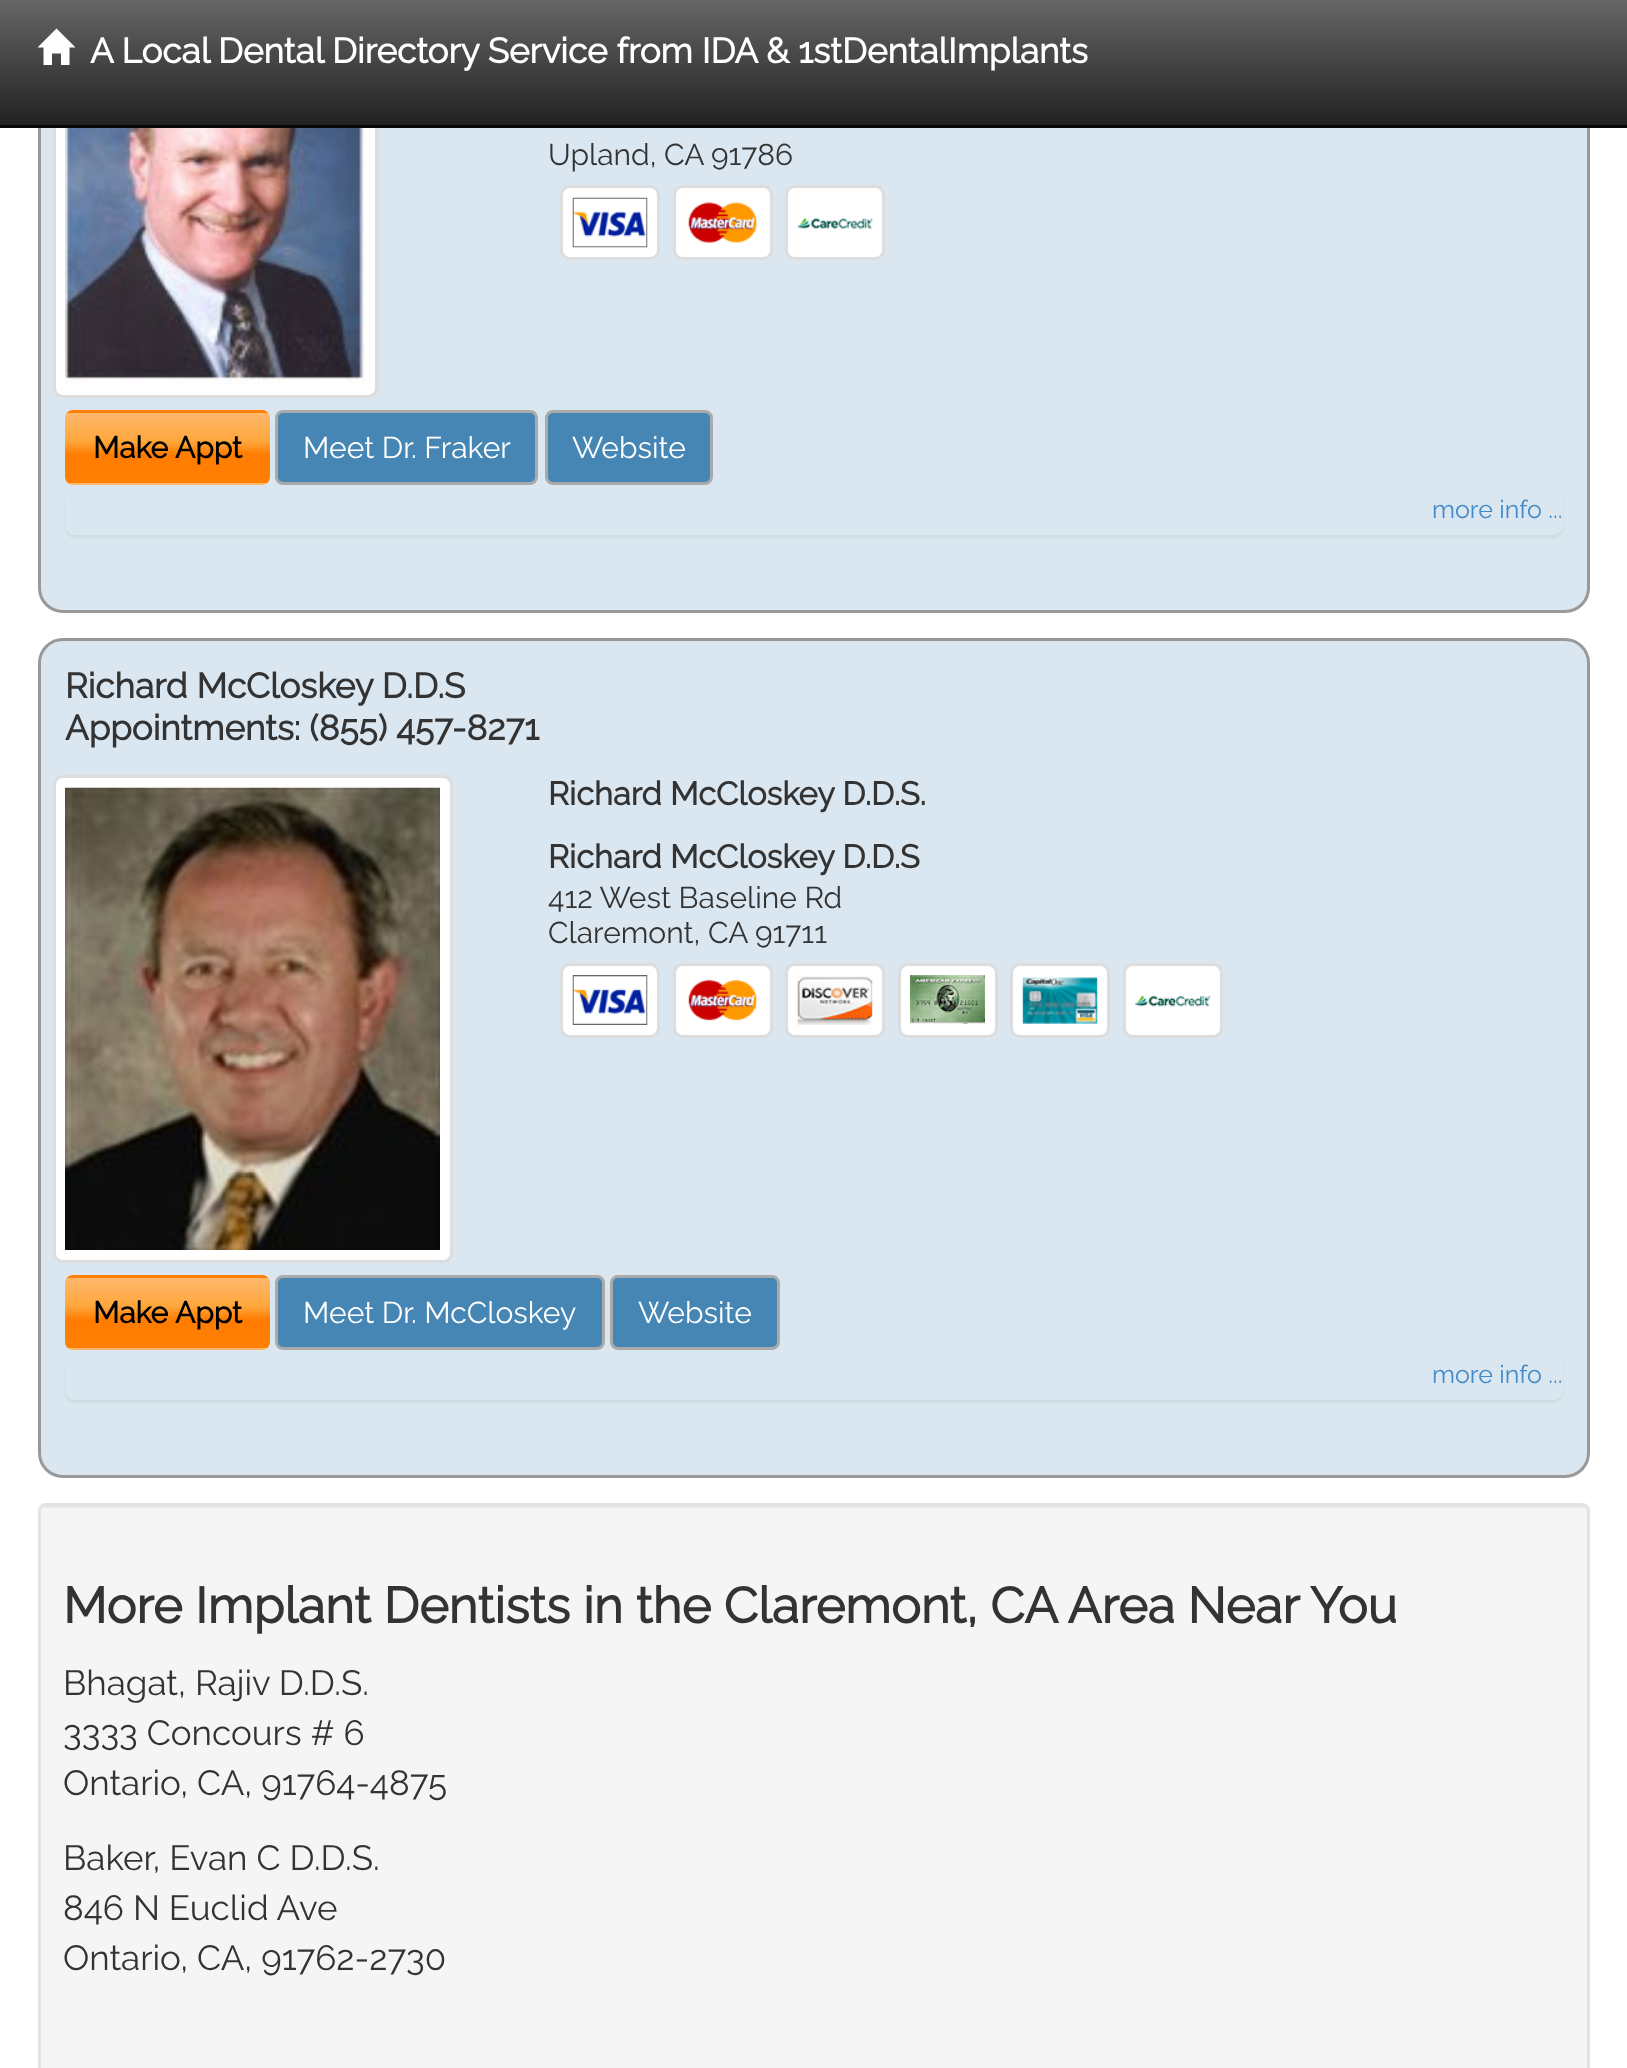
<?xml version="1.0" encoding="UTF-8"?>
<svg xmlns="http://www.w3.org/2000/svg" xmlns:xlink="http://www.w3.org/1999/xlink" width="1627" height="2068">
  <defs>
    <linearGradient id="g1" gradientUnits="userSpaceOnUse" x1="814" y1="0" x2="814" y2="125"><stop offset="0" stop-color="#666666" /><stop offset="1" stop-color="#222222" /></linearGradient>
    <clipPath id="clip1"><rect x="65" y="410" width="205" height="75" rx="8" /></clipPath>
    <linearGradient id="g2" gradientUnits="userSpaceOnUse" x1="168" y1="343" x2="168" y2="413"><stop offset="0" stop-color="#ffb76b" /><stop offset="0.4" stop-color="#ffa73d" /><stop offset="0.6" stop-color="#ff7c00" /><stop offset="1" stop-color="#ff7f04" /></linearGradient>
    <linearGradient id="g3" gradientUnits="userSpaceOnUse" x1="168" y1="413" x2="168" y2="483"><stop offset="0" stop-color="#ffb76b" /><stop offset="0.4" stop-color="#ffa73d" /><stop offset="0.6" stop-color="#ff7c00" /><stop offset="1" stop-color="#ff7f04" /></linearGradient>
    <linearGradient id="g4" gradientUnits="userSpaceOnUse" x1="168" y1="483" x2="168" y2="553"><stop offset="0" stop-color="#ffb76b" /><stop offset="0.4" stop-color="#ffa73d" /><stop offset="0.6" stop-color="#ff7c00" /><stop offset="1" stop-color="#ff7f04" /></linearGradient>
    <clipPath id="clip2"><path d="M 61 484 h 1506 v 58 h -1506 z m 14 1 h 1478 c 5.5 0 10 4.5 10 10 v 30 c 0 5.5 -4.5 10 -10 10 h -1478 c -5.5 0 -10 -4.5 -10 -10 v -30 c 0 -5.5 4.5 -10 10 -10 z" clip-rule="evenodd" /></clipPath>
    <clipPath id="clip3"><rect x="65" y="1275" width="205" height="75" rx="8" /></clipPath>
    <linearGradient id="g5" gradientUnits="userSpaceOnUse" x1="168" y1="1208" x2="168" y2="1278"><stop offset="0" stop-color="#ffb76b" /><stop offset="0.4" stop-color="#ffa73d" /><stop offset="0.6" stop-color="#ff7c00" /><stop offset="1" stop-color="#ff7f04" /></linearGradient>
    <linearGradient id="g6" gradientUnits="userSpaceOnUse" x1="168" y1="1278" x2="168" y2="1348"><stop offset="0" stop-color="#ffb76b" /><stop offset="0.4" stop-color="#ffa73d" /><stop offset="0.6" stop-color="#ff7c00" /><stop offset="1" stop-color="#ff7f04" /></linearGradient>
    <linearGradient id="g7" gradientUnits="userSpaceOnUse" x1="168" y1="1348" x2="168" y2="1418"><stop offset="0" stop-color="#ffb76b" /><stop offset="0.4" stop-color="#ffa73d" /><stop offset="0.6" stop-color="#ff7c00" /><stop offset="1" stop-color="#ff7f04" /></linearGradient>
    <clipPath id="clip4"><path d="M 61 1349 h 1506 v 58 h -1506 z m 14 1 h 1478 c 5.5 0 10 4.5 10 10 v 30 c 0 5.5 -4.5 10 -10 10 h -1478 c -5.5 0 -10 -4.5 -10 -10 v -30 c 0 -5.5 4.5 -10 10 -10 z" clip-rule="evenodd" /></clipPath>
  </defs>
  <rect width="100%" height="100%" fill="#ffffff" />
  <rect x="39.5" y="-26.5" width="1549" height="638" rx="23.5" fill="#dae7f0" stroke="#999999" stroke-width="3" />
  <rect x="54.5" y="-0.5" width="322" height="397" rx="8.5" fill="#ffffff" stroke="#dddddd" stroke-width="3" />
  <rect width="1627" height="125" fill="url(#g1)" />
  <rect y="125" width="1627" height="3" fill="#080808" />
  <path d="M 37.5 47.5 l 19 -19 l 19 19 h -6 v 17.5 h -8.5 v -11.5 h -9 v 11.5 h -8.5 v -17.5 z" fill="#ffffff" />
  <image x="65" y="128" width="300" height="257" xlink:href="image1.png" />
  <rect x="561.5" y="186.5" width="97" height="72" rx="8.5" fill="#ffffff" stroke="#dddddd" stroke-width="3" />
  <image x="572" y="197" width="76" height="51" xlink:href="image2.png" />
  <rect x="674.5" y="186.5" width="97" height="72" rx="8.5" fill="#ffffff" stroke="#dddddd" stroke-width="3" />
  <image x="688" y="202" width="69" height="41" xlink:href="image3.png" />
  <rect x="786.5" y="186.5" width="97" height="72" rx="8.5" fill="#ffffff" stroke="#dddddd" stroke-width="3" />
  <image x="797" y="217" width="76" height="12" xlink:href="image4.png" />
  <g clip-path="url(#clip1)">
    <rect x="65" y="410" width="205" height="3" fill="url(#g2)" />
    <rect x="65" y="413" width="205" height="70" fill="url(#g3)" />
    <rect x="65" y="483" width="205" height="2" fill="url(#g4)" />
  </g>
  <rect x="276.5" y="411.5" width="260" height="72" rx="6.5" fill="#4586b5" stroke="#aaaaaa" stroke-width="3" />
  <rect x="546.5" y="411.5" width="165" height="72" rx="6.5" fill="#4586b5" stroke="#aaaaaa" stroke-width="3" />
  <g clip-path="url(#clip2)">
    <rect x="65" y="488" width="1498" height="50" rx="10" fill="#000000" fill-opacity="0.05" filter="blur(1px)" />
  </g>
  <rect x="39.5" y="639.5" width="1549" height="837" rx="23.5" fill="#dae7f0" stroke="#999999" stroke-width="3" />
  <rect x="54.5" y="776.5" width="397" height="485" rx="8.5" fill="#ffffff" stroke="#dddddd" stroke-width="3" />
  <image x="65" y="787" width="375" height="463" xlink:href="image5.png" />
  <rect x="561.5" y="964.5" width="97" height="72" rx="8.5" fill="#ffffff" stroke="#dddddd" stroke-width="3" />
  <image x="572" y="975" width="76" height="50" xlink:href="image6.png" />
  <rect x="674.5" y="964.5" width="97" height="72" rx="8.5" fill="#ffffff" stroke="#dddddd" stroke-width="3" />
  <image x="688" y="979" width="69" height="42" xlink:href="image7.png" />
  <rect x="786.5" y="964.5" width="97" height="72" rx="8.5" fill="#ffffff" stroke="#dddddd" stroke-width="3" />
  <image x="797" y="976" width="76" height="49" xlink:href="image8.png" />
  <rect x="899.5" y="964.5" width="97" height="72" rx="8.5" fill="#ffffff" stroke="#dddddd" stroke-width="3" />
  <image x="910" y="975" width="75" height="50" xlink:href="image9.png" />
  <rect x="1011.5" y="964.5" width="97" height="72" rx="8.5" fill="#ffffff" stroke="#dddddd" stroke-width="3" />
  <image x="1022" y="977" width="76" height="47" xlink:href="image10.png" />
  <rect x="1124.5" y="964.5" width="97" height="72" rx="8.5" fill="#ffffff" stroke="#dddddd" stroke-width="3" />
  <image x="1135" y="995" width="75" height="12" xlink:href="image11.png" />
  <g clip-path="url(#clip3)">
    <rect x="65" y="1275" width="205" height="3" fill="url(#g5)" />
    <rect x="65" y="1278" width="205" height="70" fill="url(#g6)" />
    <rect x="65" y="1348" width="205" height="2" fill="url(#g7)" />
  </g>
  <rect x="276.5" y="1276.5" width="327" height="72" rx="6.5" fill="#4586b5" stroke="#aaaaaa" stroke-width="3" />
  <rect x="611.5" y="1276.5" width="167" height="72" rx="6.5" fill="#4586b5" stroke="#aaaaaa" stroke-width="3" />
  <g clip-path="url(#clip4)">
    <rect x="65" y="1353" width="1498" height="50" rx="10" fill="#000000" fill-opacity="0.05" filter="blur(1px)" />
  </g>
  <rect x="38" y="1503" width="1552" height="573" rx="8" fill="#f5f5f5" />
  <path d="M 45 1508 h 1537 c 3 0 6 2 6 4 c 0 -3 -1 -7 -5 -7 h -1538 c -4 0 -5 4 -5 7 c 0 -2 2 -4 5 -4 z" fill="#e9e9e9" />
  <rect x="39.5" y="1504.5" width="1549" height="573" rx="6.5" fill="none" stroke="#e3e3e3" stroke-width="3" />
  <text x="90" y="63" style="font-family: Raleway; font-size: 35px; font-weight: bold; fill: #ffffff">A Local Dental Directory Service from IDA &amp; 1stDentalImplants</text>
  <text x="548" y="165" style="font-family: Raleway; font-size: 30px; font-weight: 100; fill: #333333">Upland, CA</text>
  <text x="711" y="165" style="font-family: Raleway; font-size: 30px; font-weight: 100; fill: #333333">91786</text>
  <text x="93" y="458" style="font-family: Raleway; font-size: 30px; font-weight: bold; fill: #000000">Make Appt</text>
  <text x="303" y="458" style="font-family: Raleway; font-size: 30px; font-weight: 100; fill: #ffffff">Meet Dr. Fraker</text>
  <text x="572" y="458" style="font-family: Raleway; font-size: 30px; font-weight: 100; fill: #ffffff">Website</text>
  <text x="1432" y="518" style="font-family: Raleway; font-size: 25px; font-weight: 100; fill: #428bca">more info ...</text>
  <text x="65" y="698" style="font-family: Raleway; font-size: 35px; font-weight: bold; fill: #333333">Richard McCloskey D.D.S</text>
  <text x="65" y="740" style="font-family: Raleway; font-size: 35px; font-weight: bold; fill: #333333">Appointments: (855) 457-8271</text>
  <text x="548" y="805" style="font-family: Raleway; font-size: 32.5px; font-weight: bold; fill: #333333">Richard McCloskey D.D.S.</text>
  <text x="548" y="868" style="font-family: Raleway; font-size: 32.5px; font-weight: bold; fill: #333333">Richard McCloskey D.D.S</text>
  <text x="548" y="908" style="font-family: Raleway; font-size: 30px; font-weight: 100; fill: #333333">412 West Baseline Rd</text>
  <text x="548" y="943" style="font-family: Raleway; font-size: 30px; font-weight: 100; fill: #333333">Claremont, CA</text>
  <text x="755" y="943" style="font-family: Raleway; font-size: 30px; font-weight: 100; fill: #333333">91711</text>
  <text x="93" y="1323" style="font-family: Raleway; font-size: 30px; font-weight: bold; fill: #000000">Make Appt</text>
  <text x="303" y="1323" style="font-family: Raleway; font-size: 30px; font-weight: 100; fill: #ffffff">Meet Dr. McCloskey</text>
  <text x="638" y="1323" style="font-family: Raleway; font-size: 30px; font-weight: 100; fill: #ffffff">Website</text>
  <text x="1432" y="1383" style="font-family: Raleway; font-size: 25px; font-weight: 100; fill: #428bca">more info ...</text>
  <text x="63" y="1623" style="font-family: Raleway; font-size: 50px; font-weight: bold; fill: #333333">More Implant Dentists in the Claremont, CA Area Near You</text>
  <text x="63" y="1695" style="font-family: Raleway; font-size: 35px; font-weight: 100; fill: #333333">Bhagat, Rajiv D.D.S.</text>
  <text x="63" y="1745" style="font-family: Raleway; font-size: 35px; font-weight: 100; fill: #333333">3333 Concours # 6</text>
  <text x="63" y="1795" style="font-family: Raleway; font-size: 35px; font-weight: 100; fill: #333333">Ontario, CA, 91764-4875</text>
  <text x="63" y="1870" style="font-family: Raleway; font-size: 35px; font-weight: 100; fill: #333333">Baker, Evan C D.D.S.</text>
  <text x="63" y="1920" style="font-family: Raleway; font-size: 35px; font-weight: 100; fill: #333333">846 N Euclid Ave</text>
  <text x="63" y="1970" style="font-family: Raleway; font-size: 35px; font-weight: 100; fill: #333333">Ontario, CA, 91762-2730</text>
</svg>
